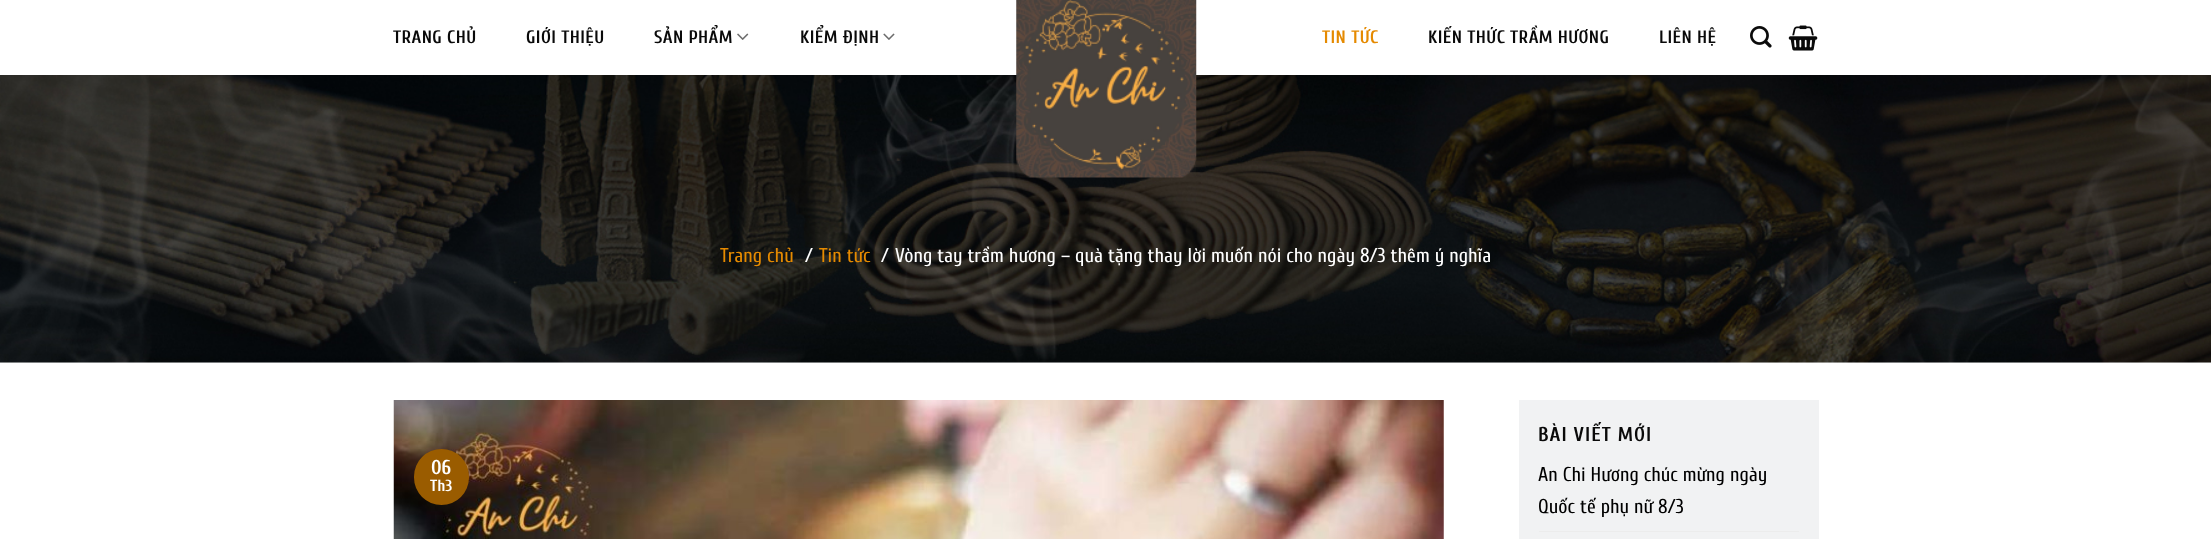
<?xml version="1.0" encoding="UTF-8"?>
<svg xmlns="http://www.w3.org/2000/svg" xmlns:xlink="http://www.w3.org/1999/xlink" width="2211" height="539">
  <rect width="100%" height="100%" fill="#ffffff" />
  <image x="737" y="33" width="12" height="7" xlink:href="image1.png" />
  <image x="883" y="33" width="12" height="7" xlink:href="image2.png" />
  <rect y="362" width="2211" height="1" fill="#f1f2f3" />
  <image x="0" y="75" width="2211" height="288" xlink:href="image6.png" />
  <image x="1016" y="0" width="181" height="178" xlink:href="image3.png" />
  <image x="1750" y="26" width="22" height="22" xlink:href="image4.png" />
  <image x="1788" y="25" width="30" height="26" xlink:href="image5.png" />
  <image x="393" y="400" width="1051" height="139" xlink:href="image7.png" />
  <rect x="414" y="449" width="55" height="56" rx="27.5" fill="#9a5c00" />
  <rect x="1519" y="400" width="300" height="139" fill="#f1f2f3" />
  <rect x="1539" y="531" width="260" height="1" fill="#ececec" />
  <text x="393" y="43" style="font-family: Cuprum; font-size: 18px; font-weight: bold; letter-spacing: 0.4px; fill: #0a0a0a">TRANG CHỦ</text>
  <text x="526" y="43" style="font-family: Cuprum; font-size: 18px; font-weight: bold; letter-spacing: 0.4px; fill: #0a0a0a">GIỚI THIỆU</text>
  <text x="654" y="43" style="font-family: Cuprum; font-size: 18px; font-weight: bold; letter-spacing: 0.4px; fill: #0a0a0a">SẢN PHẨM</text>
  <text x="800" y="43" style="font-family: Cuprum; font-size: 18px; font-weight: bold; letter-spacing: 0.4px; fill: #0a0a0a">KIỂM ĐỊNH</text>
  <text x="1322" y="43" style="font-family: Cuprum; font-size: 18px; font-weight: bold; letter-spacing: 0.4px; fill: #e58a00">TIN TỨC</text>
  <text x="1428" y="43" style="font-family: Cuprum; font-size: 18px; font-weight: bold; letter-spacing: 0.4px; fill: #0a0a0a">KIẾN THỨC TRẦM HƯƠNG</text>
  <text x="1659" y="43" style="font-family: Cuprum; font-size: 18px; font-weight: bold; letter-spacing: 0.4px; fill: #0a0a0a">LIÊN HỆ</text>
  <text x="720" y="262" style="font-family: Cuprum; font-size: 20px; fill: #e58a00">Trang chủ</text>
  <text x="805" y="262" style="font-family: Cuprum; font-size: 20px; fill: #ffffff">/</text>
  <text x="819" y="262" style="font-family: Cuprum; font-size: 20px; fill: #e58a00">Tin tức</text>
  <text x="881" y="262" style="font-family: Cuprum; font-size: 20px; fill: #ffffff">/</text>
  <text x="895" y="262" style="font-family: Cuprum; font-size: 20px; fill: #ffffff">Vòng tay trầm hương – quà tặng thay lời muốn nói cho ngày 8/3 thêm ý nghĩa</text>
  <text x="431" y="474" style="font-family: Cuprum; font-size: 20px; font-weight: bold; fill: #ffffff">06</text>
  <text x="430" y="491" style="font-family: Cuprum; font-size: 16px; font-weight: bold; fill: #ffffff">Th3</text>
  <text x="1538" y="441" style="font-family: Cuprum; font-size: 20px; font-weight: bold; letter-spacing: 1px; fill: #0a0a0a">BÀI VIẾT MỚI</text>
  <text x="1538" y="481" style="font-family: Cuprum; font-size: 20px; fill: #000000">An Chi Hương chúc mừng ngày</text>
  <text x="1538" y="513" style="font-family: Cuprum; font-size: 20px; fill: #000000">Quốc tế phụ nữ 8/3</text>
</svg>
